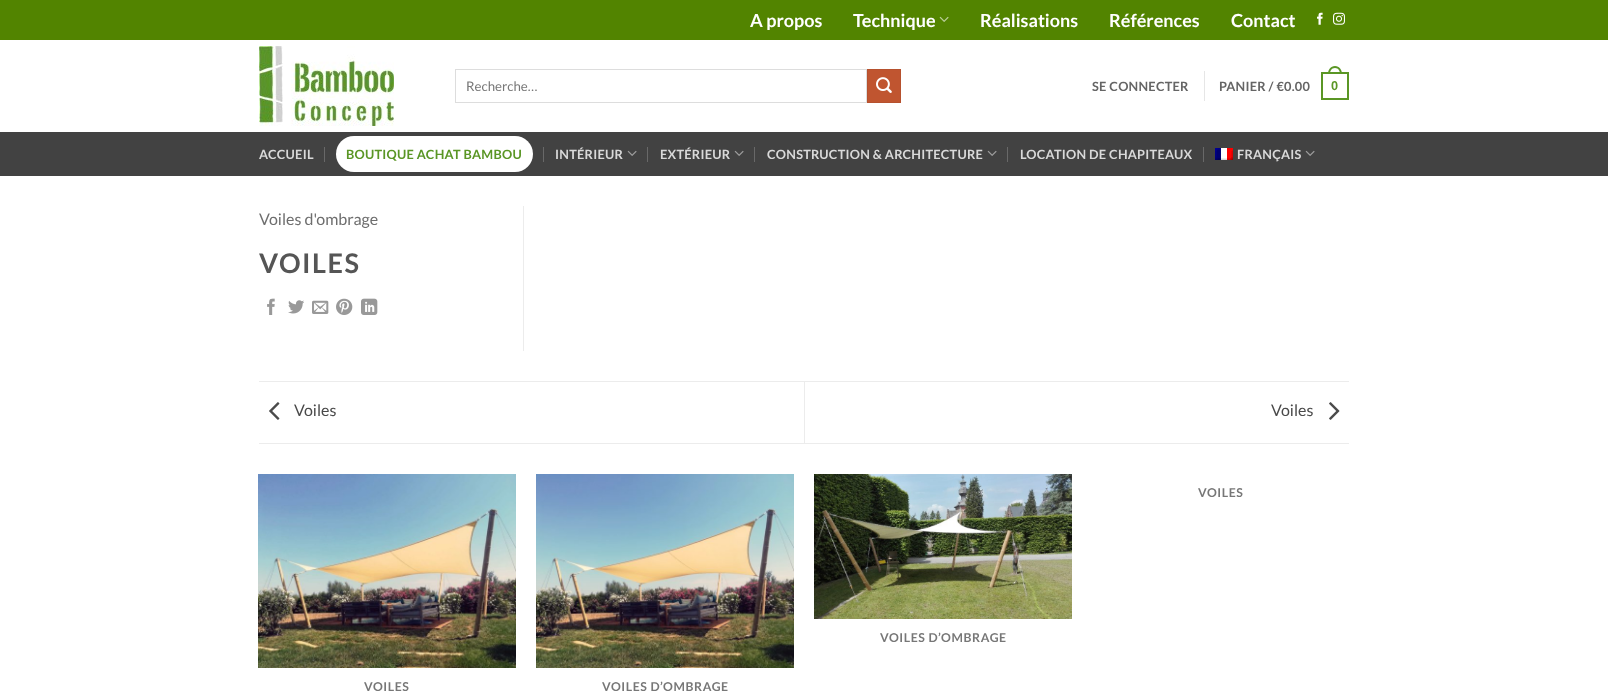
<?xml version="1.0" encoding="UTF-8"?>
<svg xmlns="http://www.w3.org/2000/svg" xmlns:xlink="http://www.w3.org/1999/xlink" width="1608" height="696">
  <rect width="100%" height="100%" fill="#ffffff" />
  <rect width="1608" height="40" fill="#528400" />
  <image x="939" y="16" width="10" height="6" xlink:href="image1.png" />
  <image x="1317" y="12" width="6" height="13" xlink:href="image2.png" />
  <image x="1333" y="12" width="12" height="13" xlink:href="image3.png" />
  <image x="259" y="46" width="135" height="80" xlink:href="image4.png" />
  <rect x="455.5" y="69.5" width="411" height="33" fill="none" stroke="#dddddd" />
  <rect x="867.5" y="69.5" width="33" height="33" fill="#c05530" stroke="#b6512e" />
  <image x="876" y="77" width="16" height="16" xlink:href="image5.png" />
  <rect x="1204" y="71" width="1" height="30" fill="#e6e6e6" />
  <rect x="1322" y="73" width="26" height="26" fill="none" stroke="#5a9625" stroke-width="2" />
  <path d="M 1335 66 c 4.5 0 7 4 7 8 h -14 c 0 -4 2.5 -8 7 -8 z m 0 2 c 3.5 0 5 3 5 6 h -10 c 0 -3 1.5 -6 5 -6 z" fill="#5a9625" fill-rule="evenodd" />
  <rect y="132" width="1608" height="44" fill="#424242" />
  <rect x="336" y="136" width="197" height="36" rx="18" fill="#ffffff" />
  <rect x="324" y="147" width="1" height="15" fill="#686868" />
  <rect x="543" y="147" width="1" height="15" fill="#686868" />
  <image x="627" y="150" width="10" height="6" xlink:href="image6.png" />
  <rect x="647" y="147" width="1" height="15" fill="#686868" />
  <image x="734" y="150" width="10" height="6" xlink:href="image6.png" />
  <rect x="754" y="147" width="1" height="15" fill="#686868" />
  <image x="987" y="150" width="10" height="6" xlink:href="image6.png" />
  <rect x="1007" y="147" width="1" height="15" fill="#686868" />
  <rect x="1203" y="147" width="1" height="15" fill="#686868" />
  <image x="1215" y="148" width="18" height="12" xlink:href="image7.png" />
  <image x="1305" y="150" width="10" height="6" xlink:href="image6.png" />
  <rect x="523" y="206" width="1" height="145" fill="#ececec" />
  <image x="267" y="298" width="8" height="17" xlink:href="image8.png" />
  <image x="288" y="300" width="16" height="14" xlink:href="image9.png" />
  <image x="312" y="300" width="17" height="14" xlink:href="image10.png" />
  <image x="336" y="298" width="17" height="17" xlink:href="image11.png" />
  <image x="361" y="298" width="17" height="17" xlink:href="image12.png" />
  <rect x="259" y="381" width="1090" height="1" fill="#ececec" />
  <rect x="259" y="443" width="1090" height="1" fill="#ececec" />
  <image x="269" y="402" width="11" height="18" xlink:href="image13.png" />
  <rect x="804" y="382" width="1" height="61" fill="#ececec" />
  <image x="1329" y="402" width="11" height="18" xlink:href="image14.png" />
  <image x="814" y="474" width="258" height="145" xlink:href="image15.png" />
  <image x="258" y="474" width="258" height="194" xlink:href="image16.png" />
  <image x="536" y="474" width="258" height="194" xlink:href="image17.png" />
  <text x="750" y="27" style="font-family: Lato; font-size: 18px; font-weight: bold; fill: #ffffff">A propos</text>
  <text x="853" y="27" style="font-family: Lato; font-size: 18px; font-weight: bold; fill: #ffffff">Technique</text>
  <text x="980" y="27" style="font-family: Lato; font-size: 18px; font-weight: bold; fill: #ffffff">Réalisations</text>
  <text x="1109" y="27" style="font-family: Lato; font-size: 18px; font-weight: bold; fill: #ffffff">Références</text>
  <text x="1231" y="27" style="font-family: Lato; font-size: 18px; font-weight: bold; fill: #ffffff">Contact</text>
  <text x="466" y="91" style="font-family: Lato; font-size: 13.25px; fill: #777777">Recherche…</text>
  <text x="1092" y="91" style="font-family: Lato; font-size: 12.75px; font-weight: bold; letter-spacing: 0.25px; fill: #656565">SE CONNECTER</text>
  <text x="1219" y="91" style="font-family: Lato; font-size: 12.75px; font-weight: bold; letter-spacing: 0.25px; fill: #656565">PANIER / €0.00</text>
  <text x="1331" y="90" style="font-family: Liberation Sans; font-size: 12.75px; font-weight: bold; letter-spacing: 0.25px; fill: #5a9625">0</text>
  <text x="259" y="159" style="font-family: Lato; font-size: 12.75px; font-weight: bold; letter-spacing: 0.25px; fill: #d9d9d9">ACCUEIL</text>
  <text x="346" y="159" style="font-family: Lato; font-size: 12.75px; font-weight: bold; letter-spacing: 0.25px; fill: #5a9625">BOUTIQUE ACHAT BAMBOU</text>
  <text x="555" y="159" style="font-family: Lato; font-size: 12.75px; font-weight: bold; letter-spacing: 0.25px; fill: #d9d9d9">INTÉRIEUR</text>
  <text x="660" y="159" style="font-family: Lato; font-size: 12.75px; font-weight: bold; letter-spacing: 0.25px; fill: #d9d9d9">EXTÉRIEUR</text>
  <text x="767" y="159" style="font-family: Lato; font-size: 12.75px; font-weight: bold; letter-spacing: 0.25px; fill: #d9d9d9">CONSTRUCTION &amp; ARCHITECTURE</text>
  <text x="1020" y="159" style="font-family: Lato; font-size: 12.75px; font-weight: bold; letter-spacing: 0.25px; fill: #d9d9d9">LOCATION DE CHAPITEAUX</text>
  <text x="1237" y="159" style="font-family: Lato; font-size: 12.75px; font-weight: bold; letter-spacing: 0.25px; fill: #d9d9d9">FRANÇAIS</text>
  <text x="259" y="225" style="font-family: Lato; font-size: 16px; fill: #6e6e6e">Voiles d'ombrage</text>
  <text x="259" y="273" style="font-family: Lato; font-size: 27px; font-weight: bold; letter-spacing: 1.5px; fill: #555555">VOILES</text>
  <text x="294" y="416" style="font-family: Lato; font-size: 16px; fill: #4a4a4a">Voiles</text>
  <text x="1271" y="416" style="font-family: Lato; font-size: 16px; fill: #4a4a4a">Voiles</text>
  <text x="1198" y="497" style="font-family: Lato; font-size: 12.25px; font-weight: bold; letter-spacing: 0.6px; fill: #777777">VOILES</text>
  <text x="880" y="642" style="font-family: Lato; font-size: 12.25px; font-weight: bold; letter-spacing: 0.6px; fill: #777777">VOILES D’OMBRAGE</text>
  <text x="364" y="691" style="font-family: Lato; font-size: 12.25px; font-weight: bold; letter-spacing: 0.6px; fill: #777777">VOILES</text>
  <text x="602" y="691" style="font-family: Lato; font-size: 12.25px; font-weight: bold; letter-spacing: 0.6px; fill: #777777">VOILES D’OMBRAGE</text>
</svg>
